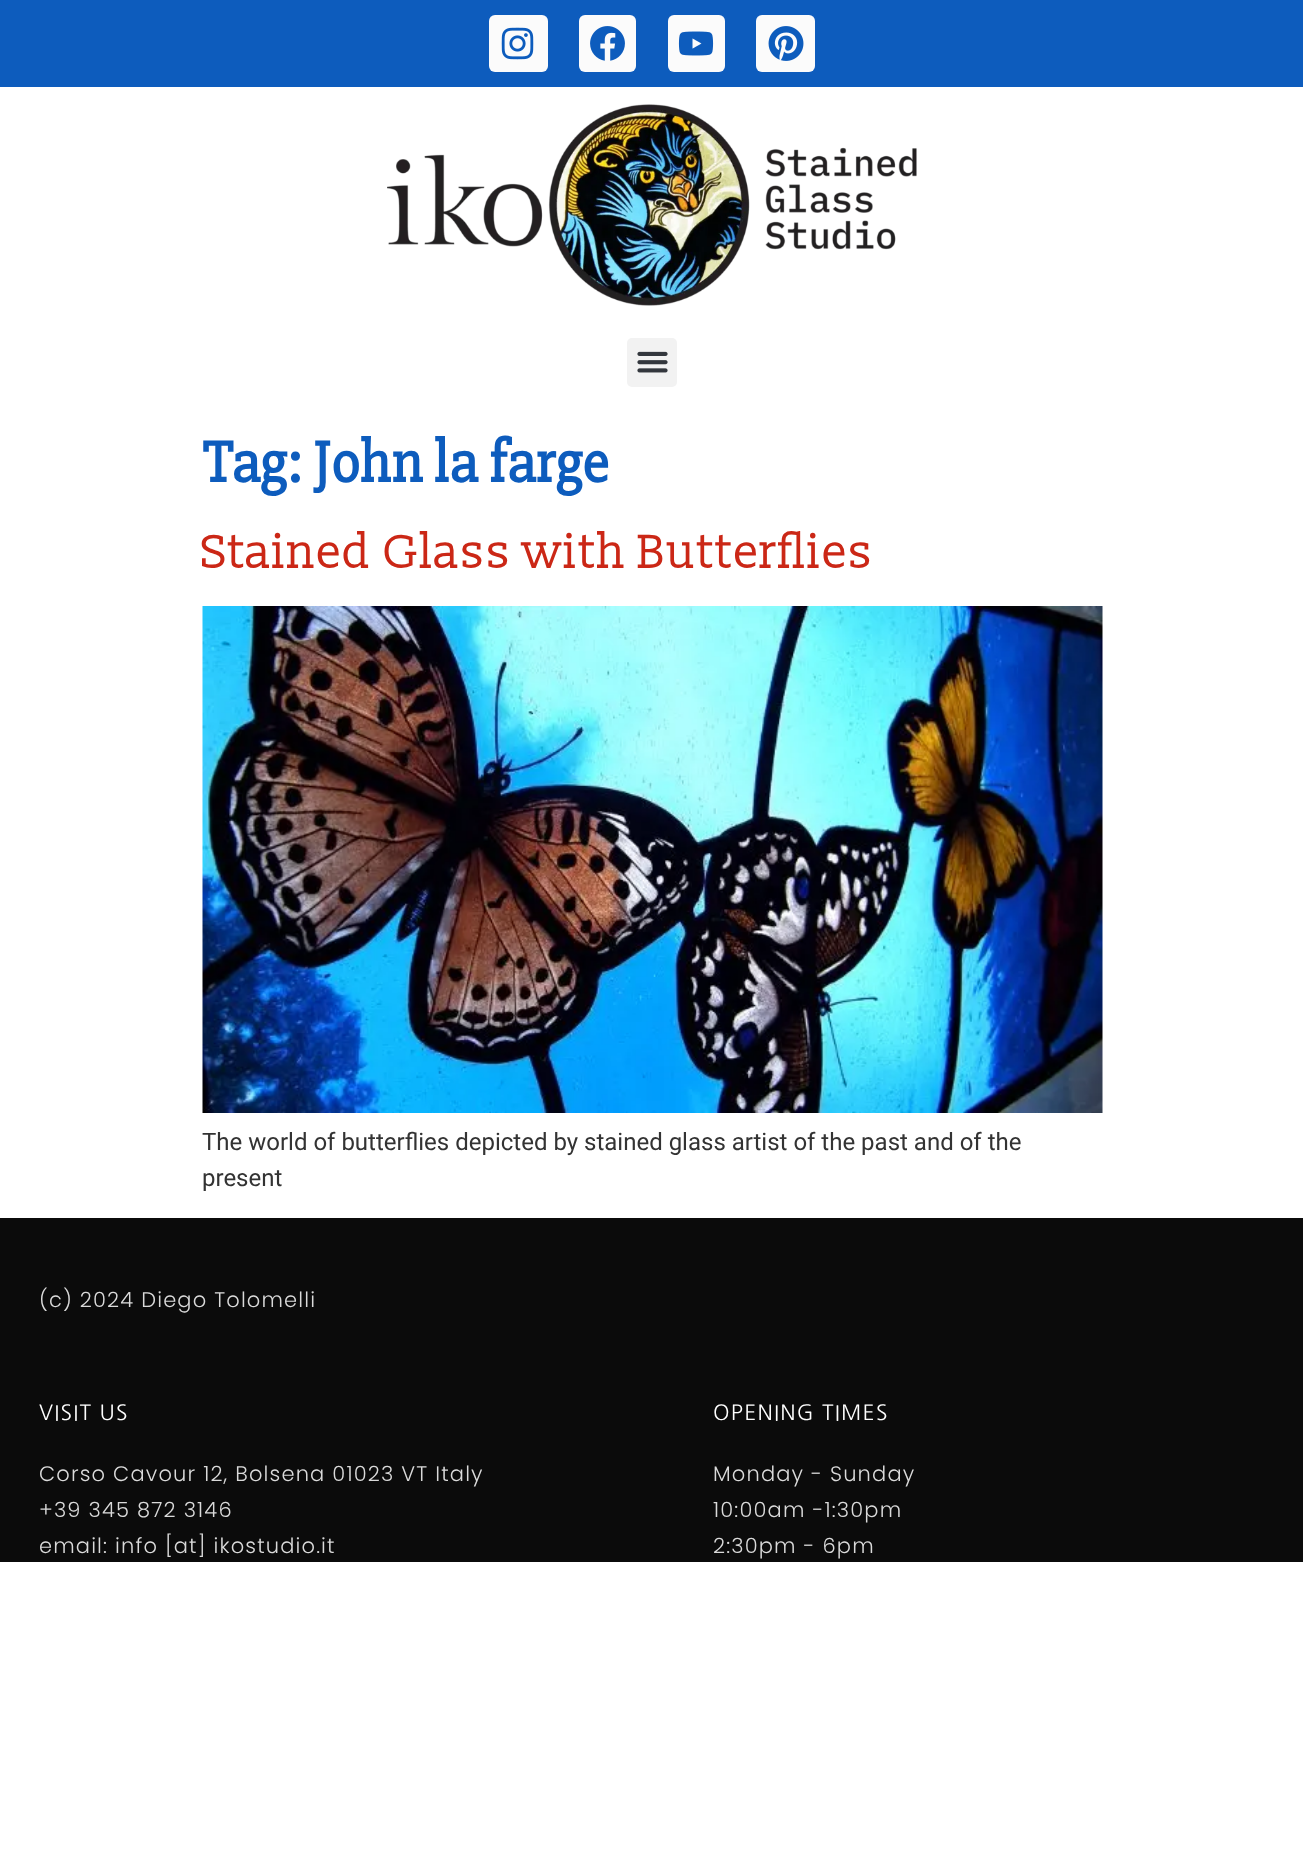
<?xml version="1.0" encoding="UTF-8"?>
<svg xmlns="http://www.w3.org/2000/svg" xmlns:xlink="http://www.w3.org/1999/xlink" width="1303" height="1870">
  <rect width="100%" height="100%" fill="#ffffff" />
  <rect width="1303" height="87" fill="#0d5cbd" />
  <rect x="489" y="15" width="59" height="57" rx="6" fill="#fbfbfb" />
  <image x="501" y="27" width="33" height="33" xlink:href="image1.png" />
  <rect x="579" y="15" width="57" height="57" rx="6" fill="#fbfbfb" />
  <image x="590" y="26" width="35" height="35" xlink:href="image2.png" />
  <rect x="668" y="15" width="57" height="57" rx="6" fill="#fbfbfb" />
  <image x="678" y="31" width="36" height="25" xlink:href="image3.png" />
  <rect x="756" y="15" width="59" height="57" rx="6" fill="#fbfbfb" />
  <image x="768" y="26" width="36" height="35" xlink:href="image4.png" />
  <image x="387" y="104" width="530" height="202" xlink:href="image5.png" />
  <rect x="627" y="338" width="50" height="49" rx="5" fill="#f2f2f2" />
  <image x="637" y="351" width="31" height="22" xlink:href="image6.png" />
  <image x="202" y="606" width="901" height="507" xlink:href="image7.png" />
  <rect y="1218" width="1303" height="344" fill="#0b0b0b" />
  <text x="202" y="482" style="font-family: 'Slabo 27px'; font-size: 60px; font-weight: bold; fill: #0d5cbd">Tag: John la farge</text>
  <text x="202" y="568" style="font-family: 'Slabo 13px'; font-size: 48px; fill: #cb2716">Stained Glass with Butterflies</text>
  <text x="202" y="1150" style="font-family: Roboto; font-size: 24px; fill: #333333">The world of butterflies depicted by stained glass artist of the past and of the</text>
  <text x="202" y="1186" style="font-family: Roboto; font-size: 24px; fill: #333333">present</text>
  <text x="39" y="1307" style="font-family: Poppins; font-size: 21px; font-weight: 300; letter-spacing: 1.15px; fill: #dadada">(c) 2024 Diego Tolomelli</text>
  <text x="39" y="1420" style="font-family: NanumGothic; font-size: 21px; letter-spacing: 1.25px; fill: #ffffff">VISIT US</text>
  <text x="39" y="1481" style="font-family: Poppins; font-size: 21px; font-weight: 300; letter-spacing: 1.15px; fill: #dadada">Corso Cavour 12, Bolsena 01023 VT Italy</text>
  <text x="39" y="1517" style="font-family: Poppins; font-size: 21px; font-weight: 300; letter-spacing: 1.15px; fill: #dadada">+39 345 872 3146</text>
  <text x="39" y="1553" style="font-family: Poppins; font-size: 21px; font-weight: 300; letter-spacing: 1.15px; fill: #dadada">email: info [at] ikostudio.it</text>
  <text x="713" y="1420" style="font-family: NanumGothic; font-size: 21px; letter-spacing: 1.25px; fill: #ffffff">OPENING TIMES</text>
  <text x="713" y="1481" style="font-family: Poppins; font-size: 21px; font-weight: 300; letter-spacing: 1.15px; fill: #dadada">Monday - Sunday</text>
  <text x="713" y="1517" style="font-family: Poppins; font-size: 21px; font-weight: 300; letter-spacing: 1.15px; fill: #dadada">10:00am -1:30pm</text>
  <text x="713" y="1553" style="font-family: Poppins; font-size: 21px; font-weight: 300; letter-spacing: 1.15px; fill: #dadada">2:30pm - 6pm</text>
</svg>
